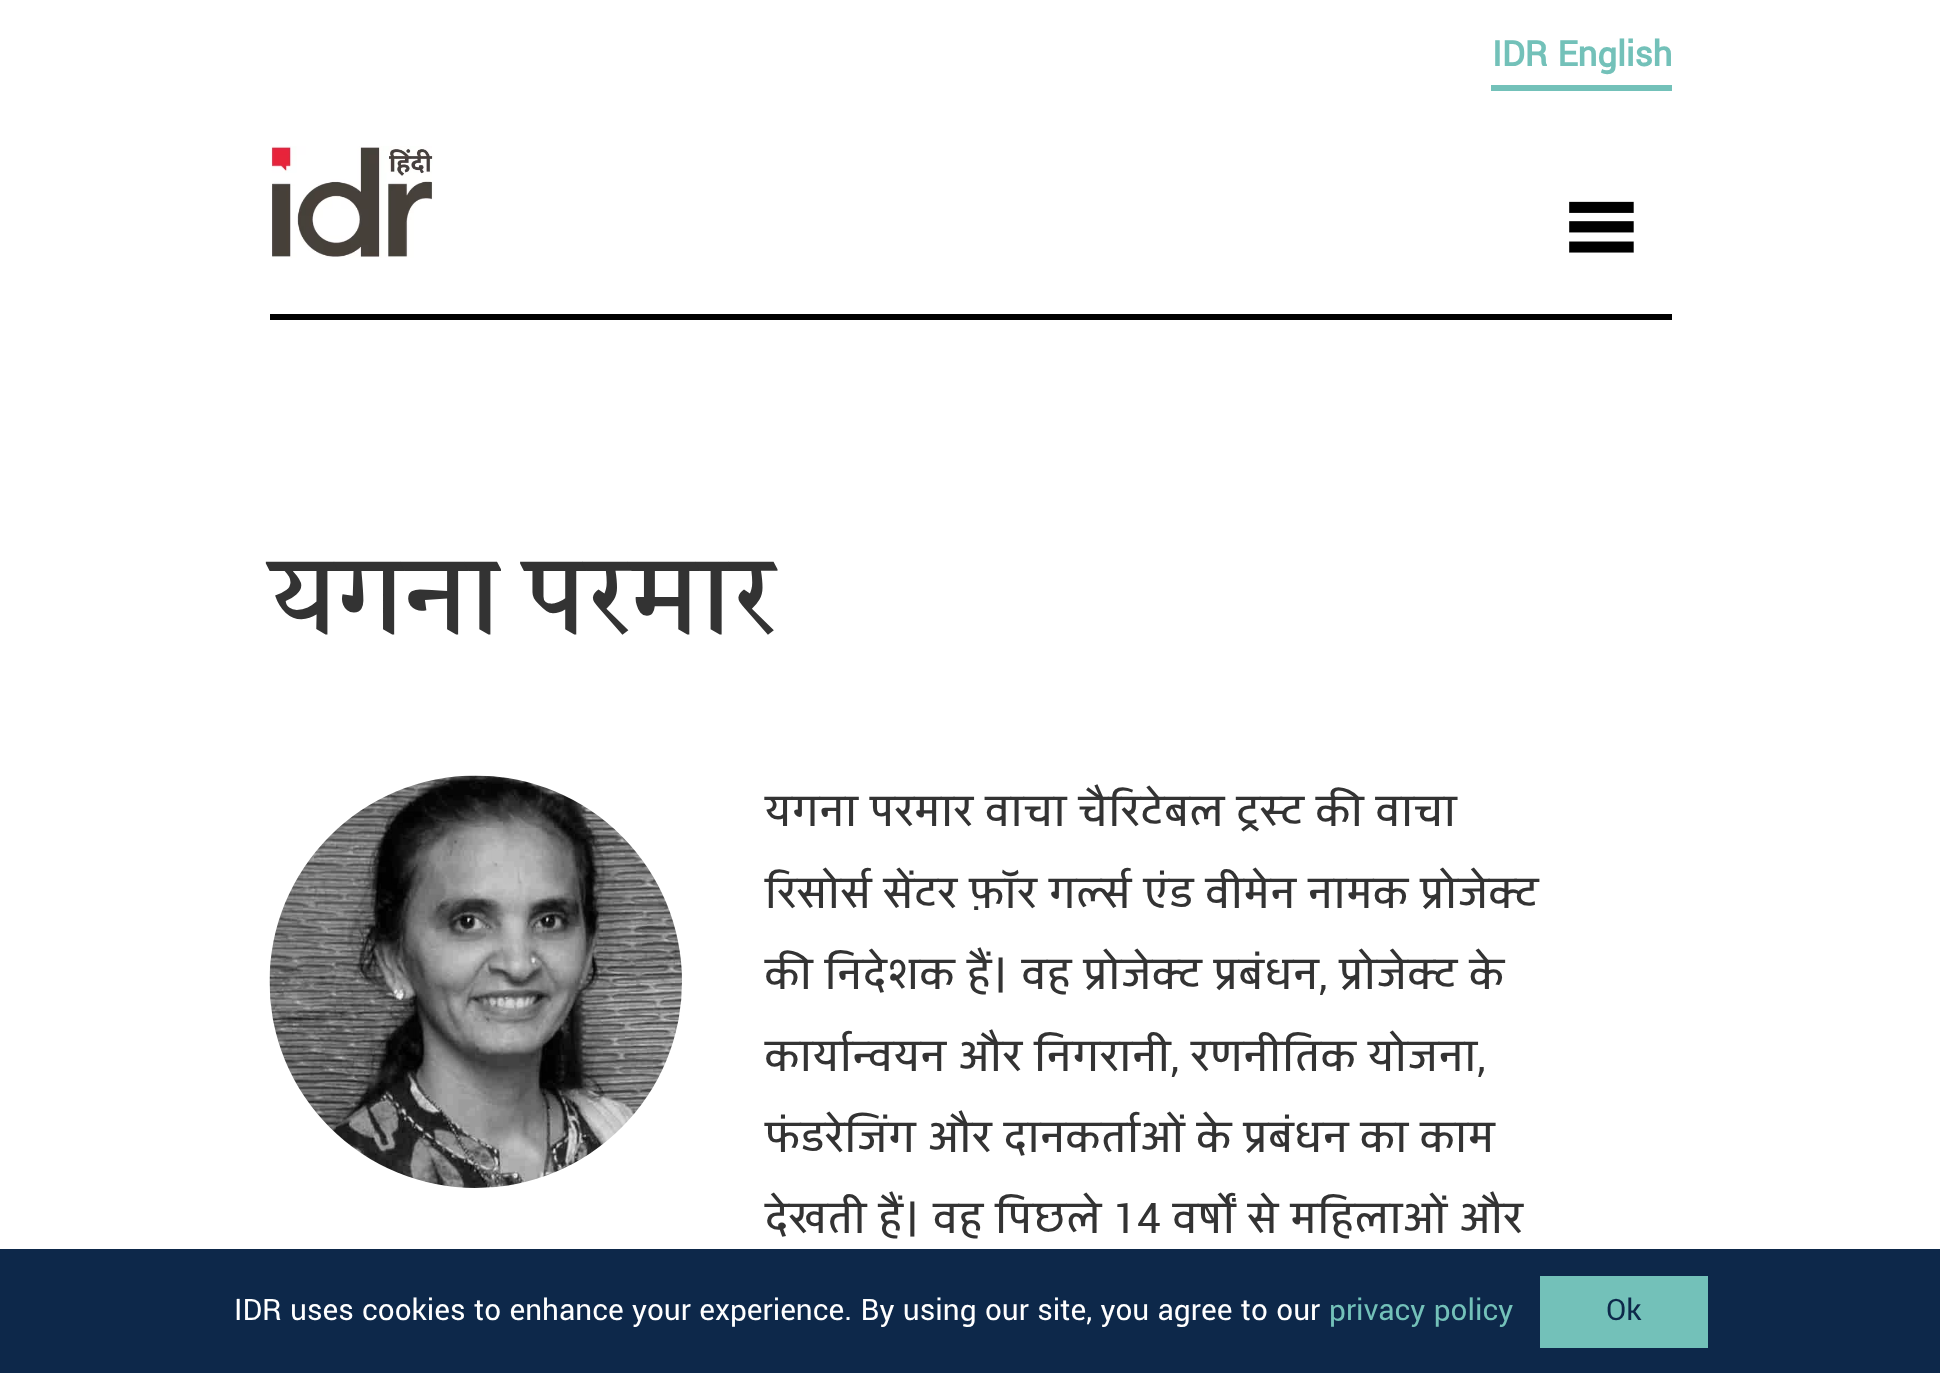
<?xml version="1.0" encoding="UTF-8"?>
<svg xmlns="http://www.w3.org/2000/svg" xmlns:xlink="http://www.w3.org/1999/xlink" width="1940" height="1373">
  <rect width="100%" height="100%" fill="#ffffff" />
  <rect x="1491" y="85" width="181" height="6" fill="#73c1b9" />
  <rect x="270" y="314" width="1402" height="6" fill="#000000" />
  <image x="271" y="146" width="163" height="112" xlink:href="image1.png" />
  <image x="1569" y="201" width="65" height="52" xlink:href="image2.png" />
  <image x="269" y="775" width="413" height="413" xlink:href="image3.png" />
  <rect y="1249" width="1940" height="124" fill="#0d284a" />
  <rect x="1540" y="1276" width="168" height="72" fill="#73c1b9" />
  <text x="1492" y="66" style="font-family: Yantramanav; font-size: 38.5px; font-weight: bold; fill: #73c1b9">IDR English</text>
  <text x="270" y="630" style="font-family: Martel; font-size: 104px; font-weight: bold; fill: #333333">यगना परमार</text>
  <text x="765" y="826" style="font-family: Yantramanav; font-size: 46.75px; fill: #333333">यगना परमार वाचा चैरिटेबल ट्रस्ट की वाचा</text>
  <text x="765" y="908" style="font-family: Yantramanav; font-size: 46.75px; fill: #333333">रिसोर्स सेंटर फ़ॉर गर्ल्स एंड वीमेन नामक प्रोजेक्ट</text>
  <text x="765" y="989" style="font-family: Yantramanav; font-size: 46.75px; fill: #333333">की निदेशक हैं। वह प्रोजेक्ट प्रबंधन, प्रोजेक्ट के</text>
  <text x="765" y="1071" style="font-family: Yantramanav; font-size: 46.75px; fill: #333333">कार्यान्वयन और निगरानी, रणनीतिक योजना,</text>
  <text x="765" y="1152" style="font-family: Yantramanav; font-size: 46.75px; fill: #333333">फंडरेजिंग और दानकर्ताओं के प्रबंधन का काम</text>
  <text x="765" y="1233" style="font-family: Yantramanav; font-size: 46.75px; fill: #333333">देखती हैं। वह पिछले 14 वर्षों से महिलाओं और</text>
  <text x="234" y="1320" style="font-family: Yantramanav; font-size: 33px; fill: #ffffff">IDR uses cookies to enhance your experience. By using our site, you agree to our</text>
  <text x="1329" y="1320" style="font-family: Yantramanav; font-size: 33px; fill: #73c1b9">privacy policy</text>
  <text x="1606" y="1320" style="font-family: Yantramanav; font-size: 33px; fill: #0d284a">Ok</text>
</svg>
